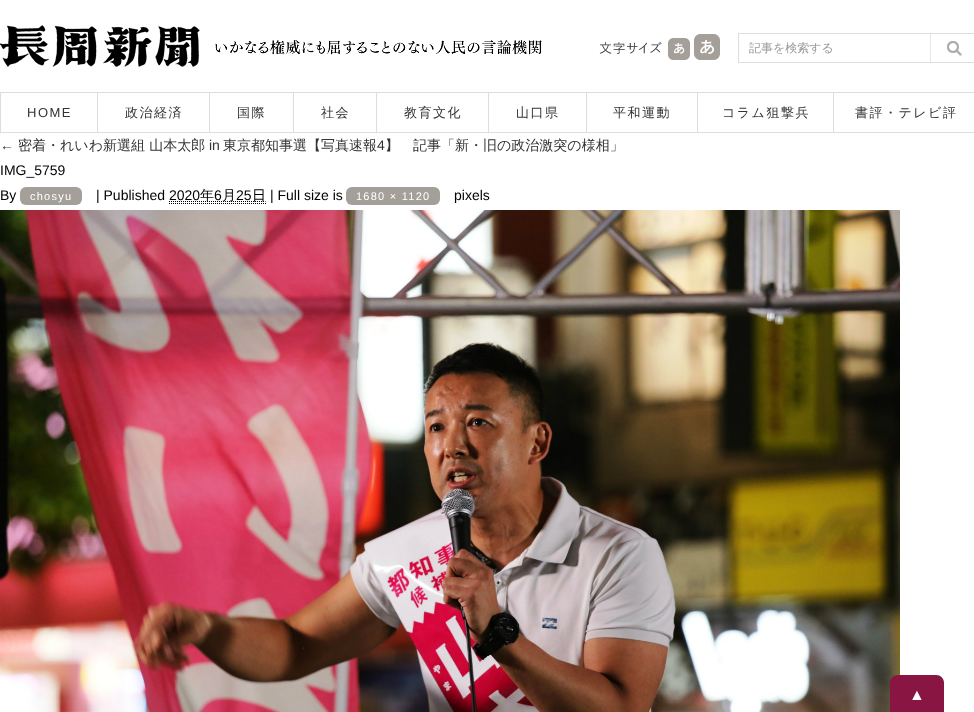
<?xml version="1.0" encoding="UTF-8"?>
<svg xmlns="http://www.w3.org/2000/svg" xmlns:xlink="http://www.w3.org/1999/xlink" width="974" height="712">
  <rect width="100%" height="100%" fill="#ffffff" />
  <image x="0" y="25" width="200" height="42" xlink:href="image1.png" />
  <image x="215" y="40" width="327" height="15" xlink:href="image2.png" />
  <image x="599" y="42" width="63" height="12" xlink:href="image3.png" />
  <image x="668" y="38" width="22" height="22" xlink:href="image4.png" />
  <image x="694" y="34" width="26" height="26" xlink:href="image5.png" />
  <rect x="738.5" y="33.5" width="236" height="29" fill="none" stroke="#dddddd" />
  <image x="930" y="34" width="32" height="28" xlink:href="image6.png" />
  <rect x="0.5" y="92.5" width="97" height="40" fill="none" stroke="#dddddd" />
  <rect x="98" y="92" width="876" height="1" fill="#dddddd" />
  <rect x="209" y="92" width="1" height="41" fill="#dddddd" />
  <rect x="98" y="132" width="112" height="1" fill="#dddddd" />
  <rect x="293" y="92" width="1" height="41" fill="#dddddd" />
  <rect x="210" y="132" width="84" height="1" fill="#dddddd" />
  <rect x="376" y="92" width="1" height="41" fill="#dddddd" />
  <rect x="294" y="132" width="83" height="1" fill="#dddddd" />
  <rect x="488" y="92" width="1" height="41" fill="#dddddd" />
  <rect x="377" y="132" width="112" height="1" fill="#dddddd" />
  <rect x="586" y="92" width="1" height="41" fill="#dddddd" />
  <rect x="489" y="132" width="98" height="1" fill="#dddddd" />
  <rect x="697" y="92" width="1" height="41" fill="#dddddd" />
  <rect x="587" y="132" width="111" height="1" fill="#dddddd" />
  <rect x="833" y="92" width="1" height="41" fill="#dddddd" />
  <rect x="698" y="132" width="276" height="1" fill="#dddddd" />
  <rect x="20" y="187" width="62" height="18" rx="6" fill="#a49f99" />
  <path d="M 169 203.5 h 97" fill="none" stroke="#000000" stroke-dasharray="1 1" />
  <path d="M 169 201.5 h 96.5" fill="none" stroke="#000000" stroke-dasharray="1 1" />
  <rect x="346" y="187" width="94" height="18" rx="6" fill="#a49f99" />
  <image x="0" y="210" width="900" height="502" xlink:href="image7.png" />
  <path d="M 898 675 h 38 c 4.5 0 8 3.5 8 8 v 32 h -54 v -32 c 0 -4.5 3.5 -8 8 -8 z" fill="#891542" />
  <text x="749" y="52" style="font-family: WenQuanYi Zen Hei; font-size: 12px; font-weight: 500; fill: #999999">記事を検索する</text>
  <text x="27" y="117" style="font-family: Liberation Sans; font-size: 13px; letter-spacing: 1.5px; fill: #333333">HOME</text>
  <text x="125" y="117" style="font-family: WenQuanYi Zen Hei; font-size: 13px; font-weight: 500; letter-spacing: 1.5px; fill: #333333">政治経済</text>
  <text x="237" y="117" style="font-family: WenQuanYi Zen Hei; font-size: 13px; font-weight: 500; letter-spacing: 1.5px; fill: #333333">国際</text>
  <text x="321" y="117" style="font-family: WenQuanYi Zen Hei; font-size: 13px; font-weight: 500; letter-spacing: 1.5px; fill: #333333">社会</text>
  <text x="404" y="117" style="font-family: WenQuanYi Zen Hei; font-size: 13px; font-weight: 500; letter-spacing: 1.5px; fill: #333333">教育文化</text>
  <text x="516" y="117" style="font-family: WenQuanYi Zen Hei; font-size: 13px; font-weight: 500; letter-spacing: 1.5px; fill: #333333">山口県</text>
  <text x="613" y="117" style="font-family: WenQuanYi Zen Hei; font-size: 13px; font-weight: 500; letter-spacing: 1.5px; fill: #333333">平和運動</text>
  <text x="722" y="117" style="font-family: WenQuanYi Zen Hei; font-size: 13px; font-weight: 500; letter-spacing: 1.5px; fill: #333333">コラム狙撃兵</text>
  <text x="855" y="117" style="font-family: WenQuanYi Zen Hei; font-size: 13px; font-weight: 500; letter-spacing: 1.5px; fill: #333333">書評・テレビ評</text>
  <text x="0" y="150" style="font-family: Liberation Sans; font-size: 14px; fill: #333333">←</text>
  <text x="18" y="150" style="font-family: WenQuanYi Zen Hei; font-size: 14px; font-weight: 500; fill: #333333">密着・れいわ新選組 山本太郎</text>
  <text x="209" y="150" style="font-family: Liberation Sans; font-size: 14px; fill: #333333">in</text>
  <text x="223" y="150" style="font-family: WenQuanYi Zen Hei; font-size: 14px; font-weight: 500; fill: #333333">東京都知事選【写真速報</text>
  <text x="377" y="150" style="font-family: Liberation Sans; font-size: 14px; fill: #333333">4</text>
  <text x="385" y="150" style="font-family: WenQuanYi Zen Hei; font-size: 14px; font-weight: 500; fill: #333333">】　記事「新・旧の政治激突の様相」</text>
  <text x="0" y="175" style="font-family: Liberation Sans; font-size: 14px; fill: #000000">IMG_5759</text>
  <text x="0" y="200" style="font-family: Liberation Sans; font-size: 14px; fill: #000000">By</text>
  <text x="30" y="200" style="font-family: Liberation Sans; font-size: 11px; letter-spacing: 1.25px; fill: #ffffff">chosyu</text>
  <text x="96" y="200" style="font-family: Liberation Sans; font-size: 14px; fill: #000000">| Published 2020</text>
  <text x="200" y="200" style="font-family: WenQuanYi Zen Hei; font-size: 14px; font-weight: 500; fill: #000000">年</text>
  <text x="214" y="200" style="font-family: Liberation Sans; font-size: 14px; fill: #000000">6</text>
  <text x="222" y="200" style="font-family: WenQuanYi Zen Hei; font-size: 14px; font-weight: 500; fill: #000000">月</text>
  <text x="236" y="200" style="font-family: Liberation Sans; font-size: 14px; fill: #000000">25</text>
  <text x="252" y="200" style="font-family: WenQuanYi Zen Hei; font-size: 14px; font-weight: 500; fill: #000000">日</text>
  <text x="270" y="200" style="font-family: Liberation Sans; font-size: 14px; fill: #000000">| Full size is</text>
  <text x="356" y="200" style="font-family: Liberation Sans; font-size: 11px; letter-spacing: 1.25px; fill: #ffffff">1680 × 1120</text>
  <text x="454" y="200" style="font-family: Liberation Sans; font-size: 14px; fill: #000000">pixels</text>
  <text x="909" y="700" style="font-family: Liberation Sans; font-size: 16px; fill: #ffffff">▲</text>
</svg>
